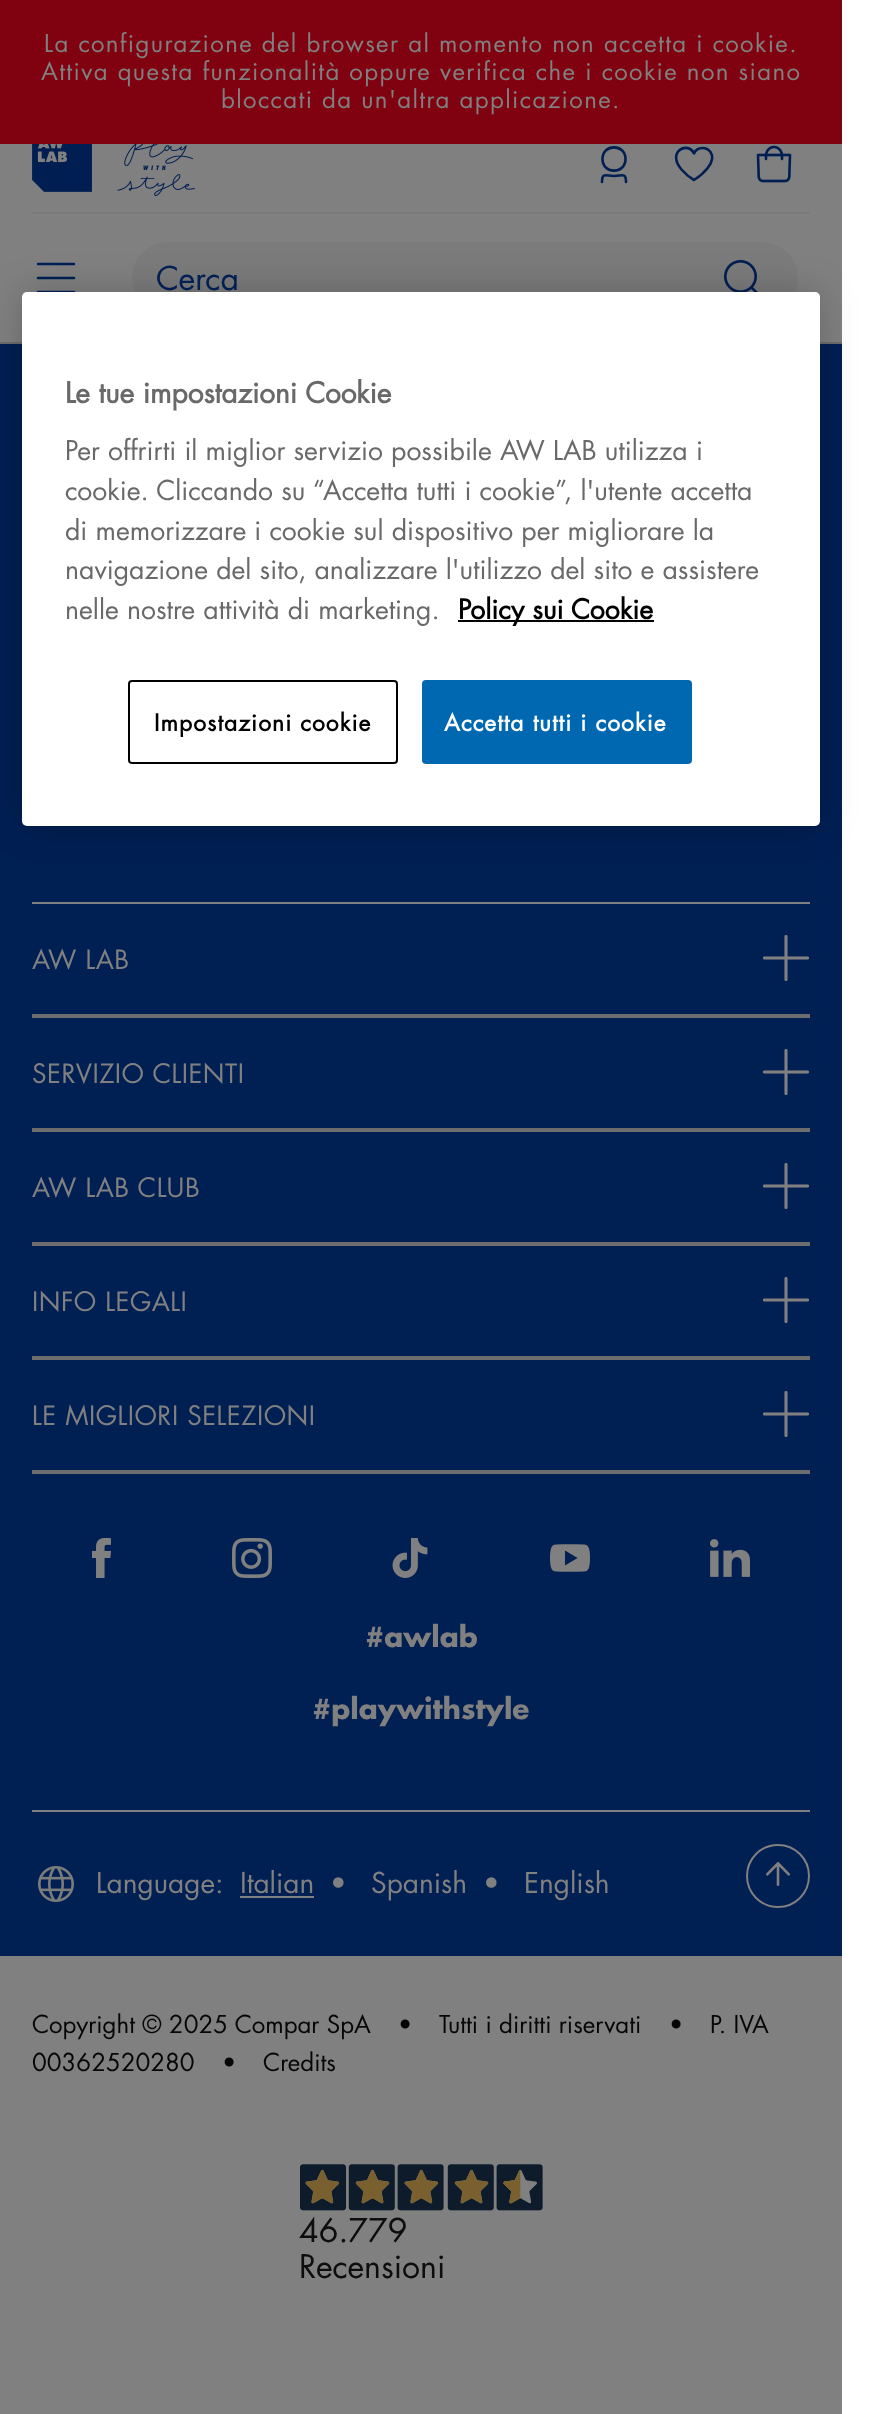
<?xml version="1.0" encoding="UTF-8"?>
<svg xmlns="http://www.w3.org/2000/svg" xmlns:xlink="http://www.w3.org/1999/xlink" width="871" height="2414">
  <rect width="100%" height="100%" fill="#ffffff" />
  <rect y="1956" width="842" height="458" fill="#808080" />
  <rect width="842" height="144" fill="#800211" />
  <rect y="144" width="842" height="198" fill="#808080" />
  <rect y="342" width="842" height="2" fill="#6c6c6c" />
  <image x="32" y="144" width="163" height="52" xlink:href="image1.png" />
  <path d="M 625.5 159 c 0 15.5 -23 15.5 -23 0 c 0 -15.5 23 -15.5 23 0 z" fill="none" stroke="#001f53" stroke-width="2.6" />
  <path d="M 602 182 c 0 -10 4 -6 12 -6 c 8 0 12 -4 12 6" fill="none" stroke="#001f53" stroke-width="2.6" stroke-linecap="round" />
  <path d="M 702.5 148 c 3 0 6 1.5 8 4 c 7 10 -9 23.5 -16.5 28 c -4.5 -2.5 -9 -6.5 -12.5 -10.5 c -15.5 -18.5 7 -28.5 12.5 -16 c 1.5 -3.5 4.5 -5.5 8.5 -5.5 z" fill="none" stroke="#001f53" stroke-width="2.6" stroke-linejoin="round" />
  <image x="756" y="145" width="36" height="38" xlink:href="image2.png" />
  <rect x="32" y="212" width="778" height="2" fill="#7b7b7b" />
  <path d="M 38 264 h 36 m -36 28 h 36 m -36 -14 h 36" fill="none" stroke="#001f53" stroke-width="2.6" stroke-linecap="round" />
  <rect x="132" y="242" width="666" height="72" rx="36" fill="#7b7b7b" />
  <image x="724" y="260" width="34" height="32" xlink:href="image3.png" />
  <rect y="344" width="842" height="1612" fill="#001f53" />
  <rect x="32" y="902" width="778" height="2" fill="#808080" />
  <rect x="32" y="1016" width="778" height="2" fill="#6e6e6e" />
  <rect x="32" y="1014" width="778" height="2" fill="#6c6c6c" />
  <image x="762" y="934" width="48" height="48" xlink:href="image4.png" />
  <rect x="32" y="1130" width="778" height="2" fill="#6e6e6e" />
  <rect x="32" y="1128" width="778" height="2" fill="#6c6c6c" />
  <image x="762" y="1048" width="48" height="48" xlink:href="image4.png" />
  <rect x="32" y="1244" width="778" height="2" fill="#6e6e6e" />
  <rect x="32" y="1242" width="778" height="2" fill="#6c6c6c" />
  <image x="762" y="1162" width="48" height="48" xlink:href="image4.png" />
  <rect x="32" y="1358" width="778" height="2" fill="#6e6e6e" />
  <rect x="32" y="1356" width="778" height="2" fill="#6c6c6c" />
  <image x="762" y="1276" width="48" height="48" xlink:href="image4.png" />
  <rect x="32" y="1472" width="778" height="2" fill="#6e6e6e" />
  <rect x="32" y="1470" width="778" height="2" fill="#6c6c6c" />
  <image x="762" y="1390" width="48" height="48" xlink:href="image4.png" />
  <image x="92" y="1538" width="19" height="40" xlink:href="image5.png" />
  <image x="232" y="1538" width="40" height="40" xlink:href="image6.png" />
  <image x="392" y="1538" width="36" height="40" xlink:href="image7.png" />
  <image x="550" y="1544" width="40" height="28" xlink:href="image8.png" />
  <image x="710" y="1539" width="40" height="38" xlink:href="image9.png" />
  <rect x="32" y="1810" width="778" height="2" fill="#808080" />
  <image x="38" y="1866" width="36" height="36" xlink:href="image10.png" />
  <rect x="240" y="1896" width="74" height="2" fill="#808080" />
  <circle cx="778" cy="1876" r="31" fill="none" stroke="#808080" stroke-width="2" />
  <image x="766" y="1862" width="24" height="24" xlink:href="image11.png" />
  <image x="300" y="2164" width="243" height="47" xlink:href="image12.png" />
  <rect x="22" y="292" width="798" height="534" rx="5" fill="#000000" fill-opacity="0.2" filter="blur(18px)" />
  <rect x="22" y="292" width="798" height="534" rx="5" fill="#ffffff" />
  <rect x="458" y="620" width="196" height="2" fill="#000000" />
  <rect x="129" y="681" width="268" height="82" rx="3" fill="none" stroke="#000000" stroke-width="2" />
  <rect x="423" y="681" width="268" height="82" rx="3" fill="#0067b1" stroke="#0067b1" stroke-width="2" />
  <text x="44" y="52" style="font-family: Futura; font-size: 24px; letter-spacing: 1.38px; fill: #808080">La configurazione del browser al momento non accetta i cookie.</text>
  <text x="41" y="80" style="font-family: Futura; font-size: 24px; letter-spacing: 1.38px; fill: #808080">Attiva questa funzionalità oppure verifica che i cookie non siano</text>
  <text x="221" y="108" style="font-family: Futura; font-size: 24px; letter-spacing: 1.38px; fill: #808080">bloccati da un'altra applicazione.</text>
  <text x="156" y="290" style="font-family: Futura; font-size: 32px; fill: #001f53">Cerca</text>
  <text x="32" y="969" style="font-family: Futura; font-size: 26px; letter-spacing: 0.5px; fill: #808080">AW LAB</text>
  <text x="32" y="1083" style="font-family: Futura; font-size: 26px; letter-spacing: 0.5px; fill: #808080">SERVIZIO CLIENTI</text>
  <text x="32" y="1197" style="font-family: Futura; font-size: 26px; letter-spacing: 0.5px; fill: #808080">AW LAB CLUB</text>
  <text x="32" y="1311" style="font-family: Futura; font-size: 26px; letter-spacing: 0.5px; fill: #808080">INFO LEGALI</text>
  <text x="32" y="1425" style="font-family: Futura; font-size: 26px; letter-spacing: 0.5px; fill: #808080">LE MIGLIORI SELEZIONI</text>
  <text x="365" y="1647" style="font-family: Futura; font-size: 28px; font-weight: bold; fill: #808080">#awlab</text>
  <text x="312" y="1719" style="font-family: Futura; font-size: 28px; font-weight: bold; fill: #808080">#playwithstyle</text>
  <text x="96" y="1893" style="font-family: Futura; font-size: 28px; fill: #808080">Language:</text>
  <text x="240" y="1893" style="font-family: Futura; font-size: 28px; fill: #808080">Italian</text>
  <text x="330" y="1893" style="font-family: Futura; font-size: 28px; fill: #808080">•</text>
  <text x="371" y="1893" style="font-family: Futura; font-size: 28px; fill: #808080">Spanish</text>
  <text x="483" y="1893" style="font-family: Futura; font-size: 28px; fill: #808080">•</text>
  <text x="524" y="1893" style="font-family: Futura; font-size: 28px; fill: #808080">English</text>
  <text x="32" y="2033" style="font-family: Futura; font-size: 24px; fill: #060606">Copyright © 2025 Compar SpA</text>
  <text x="398" y="2033" style="font-family: Futura; font-size: 24px; fill: #060606">•</text>
  <text x="439" y="2033" style="font-family: Futura; font-size: 24px; fill: #060606">Tutti i diritti riservati</text>
  <text x="669" y="2033" style="font-family: Futura; font-size: 24px; fill: #060606">•</text>
  <text x="710" y="2033" style="font-family: Futura; font-size: 24px; fill: #060606">P. IVA</text>
  <text x="32" y="2071" style="font-family: Futura; font-size: 24px; fill: #060606">00362520280</text>
  <text x="222" y="2071" style="font-family: Futura; font-size: 24px; fill: #060606">•</text>
  <text x="263" y="2071" style="font-family: Futura; font-size: 24px; fill: #060606">Credits</text>
  <text x="299" y="2242" style="font-family: Futura; font-size: 32px; fill: #0d0d0d">46.779</text>
  <text x="299" y="2278" style="font-family: Futura; font-size: 32px; fill: #0d0d0d">Recensioni</text>
  <text x="65" y="403" style="font-family: 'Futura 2'; font-size: 28px; font-weight: bold; fill: #696969">Le tue impostazioni Cookie</text>
  <text x="65" y="460" style="font-family: Futura; font-size: 26.6px; fill: #696969">Per offrirti il miglior servizio possibile AW LAB utilizza i</text>
  <text x="65" y="500" style="font-family: Futura; font-size: 26.6px; fill: #696969">cookie. Cliccando su “Accetta tutti i cookie”, l'utente accetta</text>
  <text x="65" y="540" style="font-family: Futura; font-size: 26.6px; fill: #696969">di memorizzare i cookie sul dispositivo per migliorare la</text>
  <text x="65" y="579" style="font-family: Futura; font-size: 26.6px; fill: #696969">navigazione del sito, analizzare l'utilizzo del sito e assistere</text>
  <text x="65" y="619" style="font-family: Futura; font-size: 26.6px; fill: #696969">nelle nostre attività di marketing.</text>
  <text x="458" y="619" style="font-family: 'Futura 2'; font-size: 26.6px; font-weight: bold; fill: #000000">Policy sui Cookie</text>
  <text x="154" y="731" style="font-family: 'Futura 2'; font-size: 22.75px; font-weight: bold; letter-spacing: 1.1px; fill: #000000">Impostazioni cookie</text>
  <text x="444" y="731" style="font-family: 'Futura 2'; font-size: 22.75px; font-weight: bold; letter-spacing: 1.1px; fill: #ffffff">Accetta tutti i cookie</text>
</svg>
